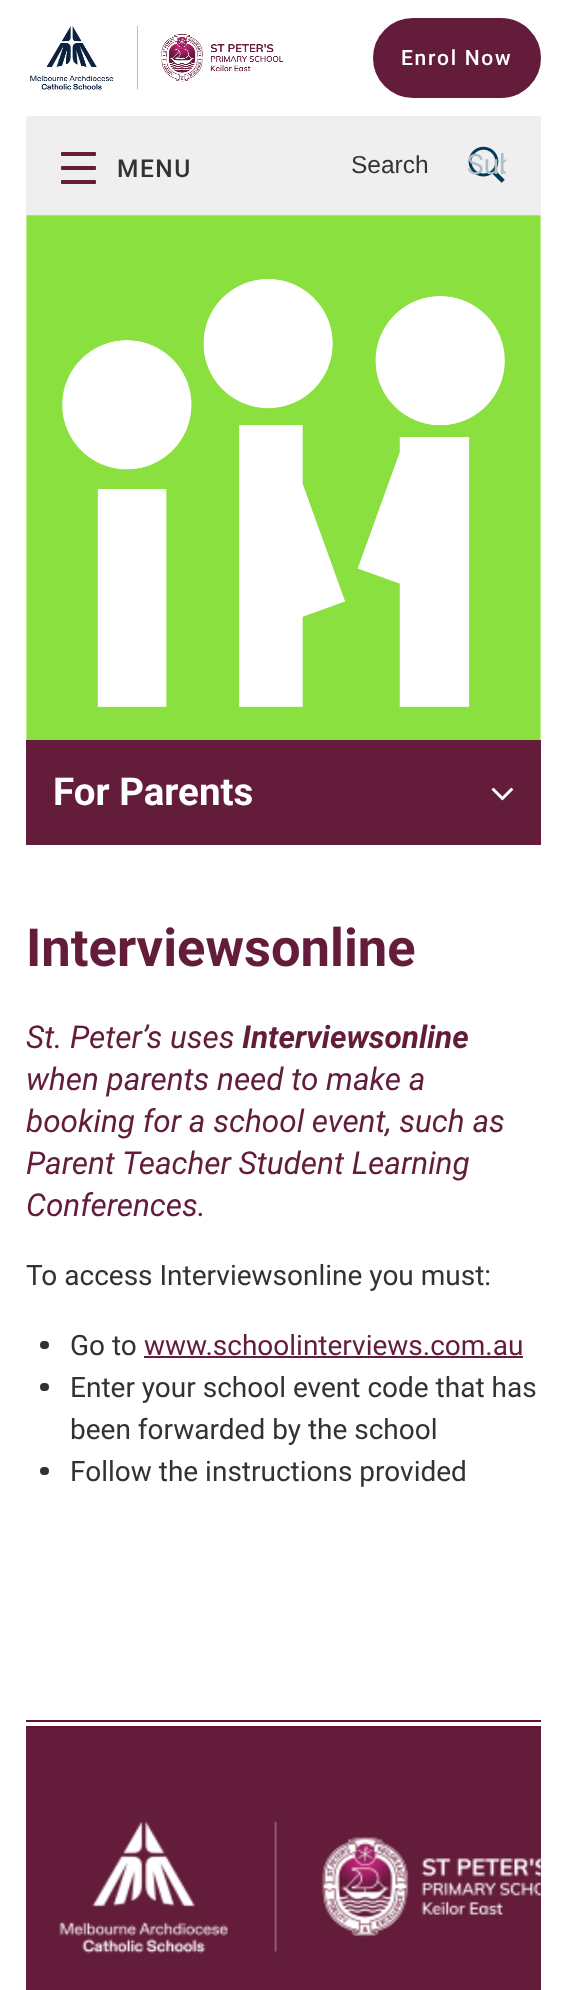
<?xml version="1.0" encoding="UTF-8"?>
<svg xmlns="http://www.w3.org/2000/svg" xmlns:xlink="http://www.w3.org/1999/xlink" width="567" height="1990">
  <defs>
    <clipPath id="clip1"><rect x="467" y="145" width="39" height="39" /></clipPath>
  </defs>
  <rect width="100%" height="100%" fill="#ffffff" />
  <rect x="26" y="116" width="515" height="99" fill="#efefef" />
  <rect x="61" y="166" width="35" height="4" rx="1" fill="#641c3b" />
  <rect x="61" y="152" width="35" height="4" rx="1" fill="#641c3b" />
  <rect x="61" y="180" width="35" height="4" rx="1" fill="#641c3b" />
  <image x="30" y="26" width="253" height="64" xlink:href="image1.png" />
  <rect x="374" y="19" width="166" height="78" rx="39" fill="#641c3b" stroke="#641c3b" stroke-width="2" />
  <image x="468" y="146" width="37" height="37" xlink:href="image2.png" />
  <image x="26" y="215" width="515" height="525" xlink:href="image3.png" />
  <rect x="26" y="740" width="515" height="105" fill="#641c3b" />
  <image x="491" y="787" width="22" height="14" xlink:href="image4.png" />
  <rect x="40" y="1341" width="9" height="8" rx="4" fill="#323232" />
  <rect x="144" y="1356" width="379" height="2" fill="#641c3b" />
  <rect x="40" y="1383" width="9" height="8" rx="4" fill="#323232" />
  <rect x="40" y="1467" width="9" height="8" rx="4" fill="#323232" />
  <rect x="26" y="1720" width="515" height="2" fill="#61162d" />
  <rect x="26" y="1728" width="515" height="262" fill="#641c3b" />
  <rect x="26" y="1726" width="515" height="2" fill="#61162d" />
  <image x="59" y="1821" width="482" height="133" xlink:href="image5.png" />
  <text x="117" y="177" style="font-family: Roboto; font-size: 24.5px; font-weight: 500; letter-spacing: 1.5px; fill: #323232">MENU</text>
  <text x="401" y="65" style="font-family: Roboto; font-size: 21px; font-weight: 500; letter-spacing: 1.75px; fill: #ffffff">Enrol Now</text>
  <text x="351" y="173" style="font-family: Liberation Sans; font-size: 24.5px; fill: #323232">Search</text>
  <g clip-path="url(#clip1)">
    <text x="467" y="174" style="font-family: Roboto; font-size: 28px; fill: #acbdc6">Sub</text>
  </g>
  <text x="53" y="805" style="font-family: Roboto; font-size: 38.5px; font-weight: bold; fill: #ffffff">For Parents</text>
  <text x="26" y="966" style="font-family: Roboto; font-size: 52.5px; font-weight: bold; fill: #641c3b">Interviewsonline</text>
  <text x="26" y="1048" style="font-family: Roboto; font-size: 31.5px; font-style: italic; fill: #641c3b">St. Peter’s uses</text>
  <text x="242" y="1048" style="font-family: Roboto; font-size: 31.5px; font-weight: bold; font-style: italic; fill: #641c3b">Interviewsonline</text>
  <text x="26" y="1090" style="font-family: Roboto; font-size: 31.5px; font-style: italic; fill: #641c3b">when parents need to make a</text>
  <text x="26" y="1132" style="font-family: Roboto; font-size: 31.5px; font-style: italic; fill: #641c3b">booking for a school event, such as</text>
  <text x="26" y="1174" style="font-family: Roboto; font-size: 31.5px; font-style: italic; fill: #641c3b">Parent Teacher Student Learning</text>
  <text x="26" y="1216" style="font-family: Roboto; font-size: 31.5px; font-style: italic; fill: #641c3b">Conferences.</text>
  <text x="26" y="1285" style="font-family: Roboto; font-size: 28px; fill: #323232">To access Interviewsonline you must:</text>
  <text x="70" y="1355" style="font-family: Roboto; font-size: 28px; fill: #323232">Go to</text>
  <text x="144" y="1355" style="font-family: Roboto; font-size: 28px; fill: #641c3b">www.schoolinterviews.com.au</text>
  <text x="70" y="1397" style="font-family: Roboto; font-size: 28px; fill: #323232">Enter your school event code that has</text>
  <text x="70" y="1439" style="font-family: Roboto; font-size: 28px; fill: #323232">been forwarded by the school</text>
  <text x="70" y="1481" style="font-family: Roboto; font-size: 28px; fill: #323232">Follow the instructions provided</text>
</svg>
